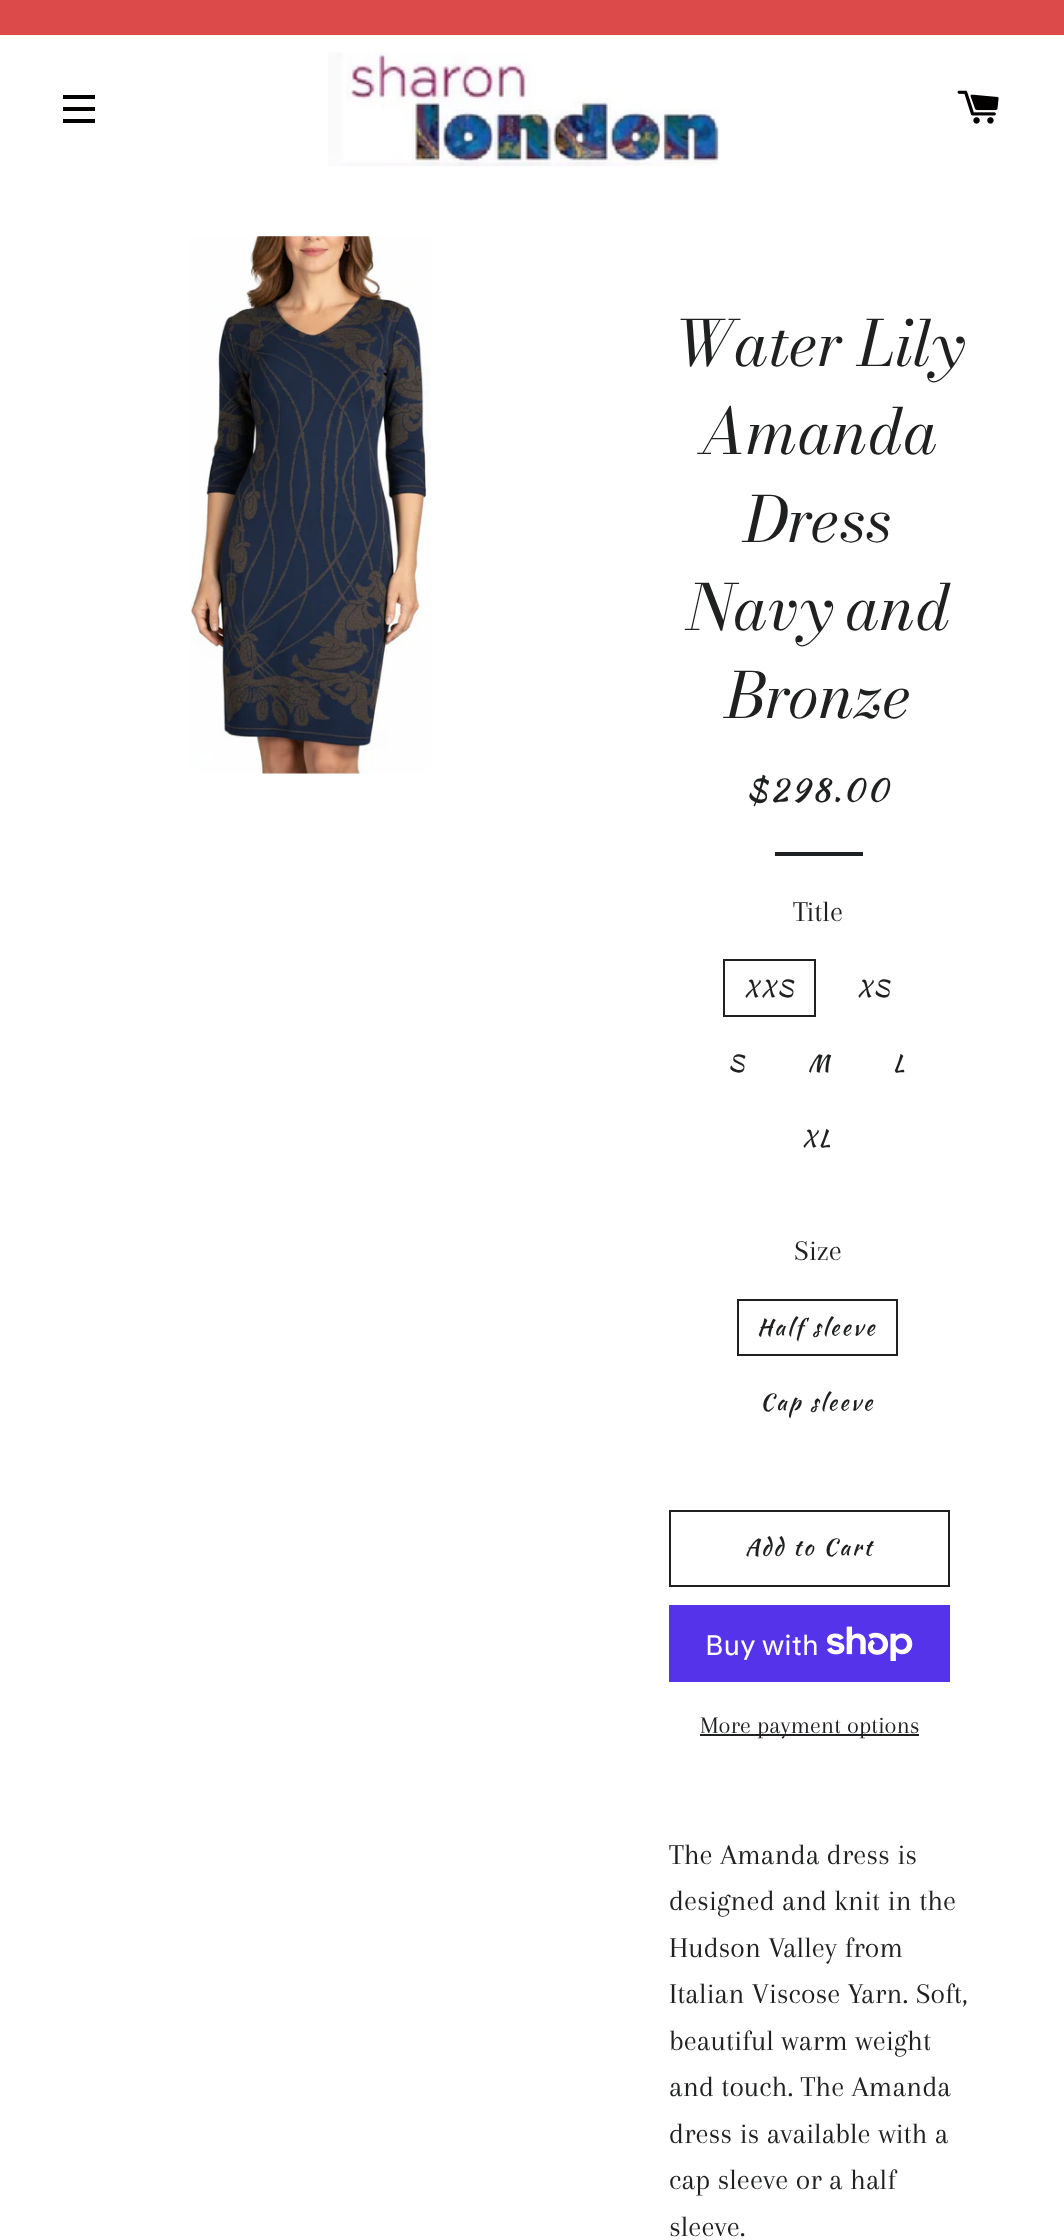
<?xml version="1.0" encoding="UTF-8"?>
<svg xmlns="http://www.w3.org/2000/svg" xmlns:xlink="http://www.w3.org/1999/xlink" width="1064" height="2240">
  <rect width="100%" height="100%" fill="#ffffff" />
  <rect width="1064" height="35" fill="#dd4a4a" />
  <rect x="63" y="95" width="32" height="4" fill="#030000" />
  <rect x="63" y="107" width="32" height="4" fill="#030000" />
  <rect x="63" y="119" width="32" height="4" fill="#030000" />
  <image x="328" y="52" width="392" height="115" xlink:href="image1.png" />
  <image x="957" y="90" width="42" height="34" xlink:href="image2.png" />
  <image x="190" y="236" width="241" height="538" xlink:href="image3.png" />
  <rect x="775" y="852" width="88" height="4" fill="#1f2021" />
  <rect x="724" y="960" width="91" height="56" fill="none" stroke="#1f2021" stroke-width="2" />
  <rect x="738" y="1300" width="159" height="55" fill="none" stroke="#1f2021" stroke-width="2" />
  <rect x="670" y="1511" width="279" height="75" fill="none" stroke="#1f2021" stroke-width="2" />
  <rect x="669" y="1605" width="281" height="77" fill="#5433eb" />
  <image x="827" y="1626" width="86" height="35" xlink:href="image4.png" />
  <rect x="700" y="1734" width="219" height="2" fill="#1f2021" />
  <text x="673" y="366" word-spacing="-1" style="font-family: Bodoni Moda; font-size: 63px; font-style: italic; fill: #1f2021">Water Lily</text>
  <text x="700" y="454" style="font-family: Bodoni Moda; font-size: 63px; font-style: italic; fill: #1f2021">Amanda</text>
  <text x="744" y="542" style="font-family: Bodoni Moda; font-size: 63px; font-style: italic; fill: #1f2021">Dress</text>
  <text x="687" y="630" word-spacing="-2" style="font-family: Bodoni Moda; font-size: 63px; font-style: italic; fill: #1f2021">Navy and</text>
  <text x="726" y="718" style="font-family: Bodoni Moda; font-size: 63px; font-style: italic; fill: #1f2021">Bronze</text>
  <text x="746" y="801" style="font-family: Kaushan Script; font-size: 31.5px; letter-spacing: 3.25px; fill: #1f2021">$298.00</text>
  <text x="793" y="921" style="font-family: Arapey; font-size: 29.75px; fill: #1f2021">Title</text>
  <text x="744" y="996" style="font-family: Kaushan Script; font-size: 22.75px; letter-spacing: 2.25px; fill: #1f2021">XXS</text>
  <text x="857" y="996" style="font-family: Kaushan Script; font-size: 22.75px; letter-spacing: 2.25px; fill: #1f2021">XS</text>
  <text x="728" y="1071" style="font-family: Kaushan Script; font-size: 22.75px; letter-spacing: 2.25px; fill: #1f2021">S</text>
  <text x="808" y="1071" style="font-family: Kaushan Script; font-size: 22.75px; letter-spacing: 2.25px; fill: #1f2021">M</text>
  <text x="893" y="1071" style="font-family: Kaushan Script; font-size: 22.75px; letter-spacing: 2.25px; fill: #1f2021">L</text>
  <text x="802" y="1146" style="font-family: Kaushan Script; font-size: 22.75px; letter-spacing: 2.25px; fill: #1f2021">XL</text>
  <text x="794" y="1260" style="font-family: Arapey; font-size: 29.75px; fill: #1f2021">Size</text>
  <text x="757" y="1335" style="font-family: Kaushan Script; font-size: 22.75px; letter-spacing: 2.25px; fill: #1f2021">Half sleeve</text>
  <text x="760" y="1410" style="font-family: Kaushan Script; font-size: 22.75px; letter-spacing: 2.25px; fill: #1f2021">Cap sleeve</text>
  <text x="745" y="1555" style="font-family: Kaushan Script; font-size: 22.75px; letter-spacing: 2.25px; fill: #1f2021">Add to Cart</text>
  <text x="705" y="1655" style="font-family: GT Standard; font-size: 28px; fill: #ffffff">Buy with</text>
  <text x="700" y="1733" style="font-family: Arapey; font-size: 24.5px; fill: #1f2021">More payment options</text>
  <text x="669" y="1864" style="font-family: Arapey; font-size: 29.75px; fill: #1f2021">The Amanda dress is</text>
  <text x="669" y="1910" style="font-family: Arapey; font-size: 29.75px; fill: #1f2021">designed and knit in the</text>
  <text x="669" y="1957" style="font-family: Arapey; font-size: 29.75px; fill: #1f2021">Hudson Valley from</text>
  <text x="669" y="2003" style="font-family: Arapey; font-size: 29.75px; fill: #1f2021">Italian Viscose Yarn. Soft,</text>
  <text x="669" y="2050" style="font-family: Arapey; font-size: 29.75px; fill: #1f2021">beautiful warm weight</text>
  <text x="669" y="2096" style="font-family: Arapey; font-size: 29.75px; fill: #1f2021">and touch. The Amanda</text>
  <text x="669" y="2143" style="font-family: Arapey; font-size: 29.75px; fill: #1f2021">dress is available with a</text>
  <text x="669" y="2189" style="font-family: Arapey; font-size: 29.75px; fill: #1f2021">cap sleeve or a half</text>
  <text x="669" y="2236" style="font-family: Arapey; font-size: 29.75px; fill: #1f2021">sleeve.</text>
</svg>
